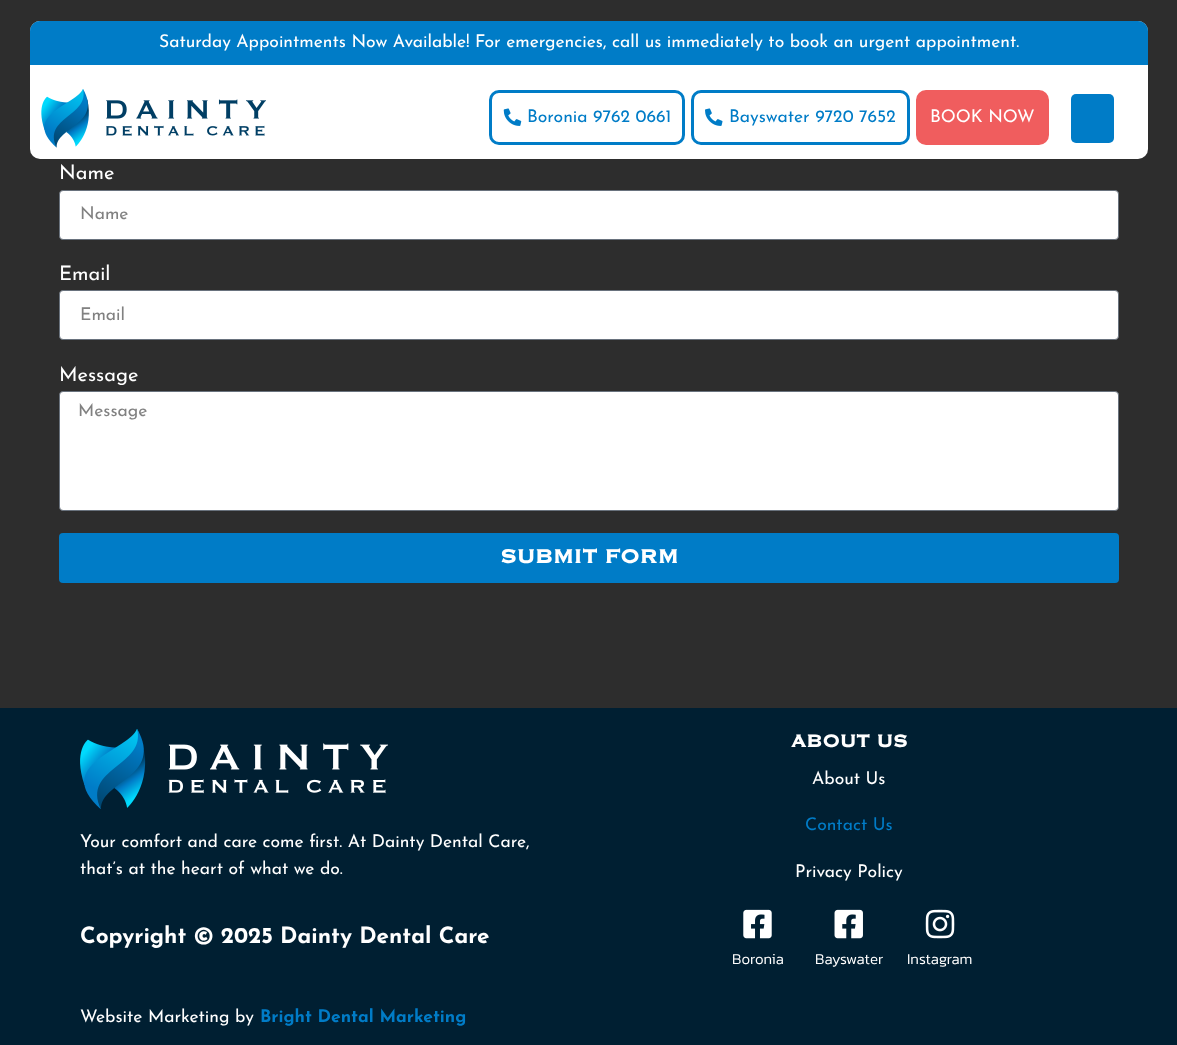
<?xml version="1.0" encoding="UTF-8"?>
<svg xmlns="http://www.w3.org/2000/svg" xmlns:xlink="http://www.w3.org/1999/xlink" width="1177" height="1045">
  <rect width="100%" height="100%" fill="#2d2d2d" />
  <rect x="30" y="21" width="1118" height="138" rx="10" fill="#ffffff" />
  <path d="M 40 21 h 1098 c 5.5 0 10 4.5 10 10 v 34 h -1118 v -34 c 0 -5.5 4.5 -10 10 -10 z" fill="#007cc7" />
  <image x="41" y="89" width="225" height="59" xlink:href="image1.png" />
  <rect x="490.5" y="91.5" width="193" height="52" rx="8.5" fill="none" stroke="#007cc7" stroke-width="3" />
  <image x="503" y="108" width="19" height="18" xlink:href="image2.png" />
  <rect x="692.5" y="91.5" width="216" height="52" rx="8.5" fill="none" stroke="#007cc7" stroke-width="3" />
  <image x="705" y="108" width="18" height="18" xlink:href="image3.png" />
  <rect x="917.5" y="91.5" width="130" height="52" rx="8.5" fill="#f05d5e" stroke="#f05d5e" stroke-width="3" />
  <rect x="1071" y="94" width="43" height="49" rx="5" fill="#007cc7" />
  <rect x="59.5" y="190.5" width="1059" height="49" rx="3.5" fill="#ffffff" stroke="#69727d" />
  <rect x="59.5" y="290.5" width="1059" height="49" rx="3.5" fill="#ffffff" stroke="#69727d" />
  <rect x="59.5" y="391.5" width="1059" height="119" rx="3.5" fill="#ffffff" stroke="#69727d" />
  <rect x="59" y="533" width="1060" height="50" rx="4" fill="#007cc7" />
  <rect y="708" width="1177" height="337" fill="#001f32" />
  <image x="80" y="729" width="308" height="80" xlink:href="image4.png" />
  <image x="743" y="909" width="29" height="30" xlink:href="image5.png" />
  <image x="834" y="909" width="29" height="30" xlink:href="image6.png" />
  <image x="925" y="909" width="30" height="30" xlink:href="image7.png" />
  <text x="159" y="47" style="font-family: Josefin Sans; font-size: 17.5px; fill: #ffffff">Saturday Appointments Now Available! For emergencies, call us immediately to book an urgent appointment.</text>
  <text x="527" y="122" style="font-family: Josefin Sans; font-size: 17.5px; fill: #007cc7">Boronia 9762 0661</text>
  <text x="729" y="122" style="font-family: Josefin Sans; font-size: 17.5px; fill: #007cc7">Bayswater 9720 7652</text>
  <text x="930" y="122" style="font-family: Josefin Sans; font-size: 17.5px; fill: #ffffff">BOOK NOW</text>
  <text x="59" y="179" style="font-family: Josefin Sans; font-size: 20px; fill: #ffffff">Name</text>
  <text x="80" y="219" style="font-family: Josefin Sans; font-size: 17.5px; fill: #818181">Name</text>
  <text x="59" y="280" style="font-family: Josefin Sans; font-size: 20px; fill: #ffffff">Email</text>
  <text x="80" y="320" style="font-family: Josefin Sans; font-size: 17.5px; fill: #818181">Email</text>
  <text x="59" y="381" style="font-family: Josefin Sans; font-size: 20px; fill: #ffffff">Message</text>
  <text x="78" y="416" style="font-family: Josefin Sans; font-size: 17.5px; fill: #818181">Message</text>
  <text x="500" y="563" style="font-family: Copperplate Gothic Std; font-size: 25px; font-weight: bold; fill: #ffffff">SUBMIT FORM</text>
  <text x="80" y="847" style="font-family: Josefin Sans; font-size: 17.5px; fill: #ffffff">Your comfort and care come first. At Dainty Dental Care,</text>
  <text x="80" y="874" style="font-family: Josefin Sans; font-size: 17.5px; fill: #ffffff">that’s at the heart of what we do.</text>
  <text x="80" y="943" style="font-family: Josefin Sans; font-size: 22.5px; font-weight: bold; fill: #ffffff">Copyright © 2025 Dainty Dental Care</text>
  <text x="80" y="1022" style="font-family: Josefin Sans; font-size: 17.5px; fill: #ffffff">Website Marketing by</text>
  <text x="260" y="1022" style="font-family: Josefin Sans; font-size: 17.5px; font-weight: bold; fill: #007cc7">Bright Dental Marketing</text>
  <text x="791" y="747" style="font-family: Copperplate Gothic Std; font-size: 22.5px; font-weight: bold; fill: #ffffff">ABOUT US</text>
  <text x="812" y="784" style="font-family: Josefin Sans; font-size: 17.5px; fill: #ffffff">About Us</text>
  <text x="805" y="830" style="font-family: Josefin Sans; font-size: 17.5px; fill: #007cc7">Contact Us</text>
  <text x="795" y="877" style="font-family: Josefin Sans; font-size: 17.5px; fill: #ffffff">Privacy Policy</text>
  <text x="732" y="964" style="font-family: Kanit; font-size: 15px; font-weight: 300; fill: #ffffff">Boronia</text>
  <text x="815" y="964" style="font-family: Kanit; font-size: 15px; font-weight: 300; fill: #ffffff">Bayswater</text>
  <text x="907" y="964" style="font-family: Kanit; font-size: 15px; font-weight: 300; fill: #ffffff">Instagram</text>
</svg>
